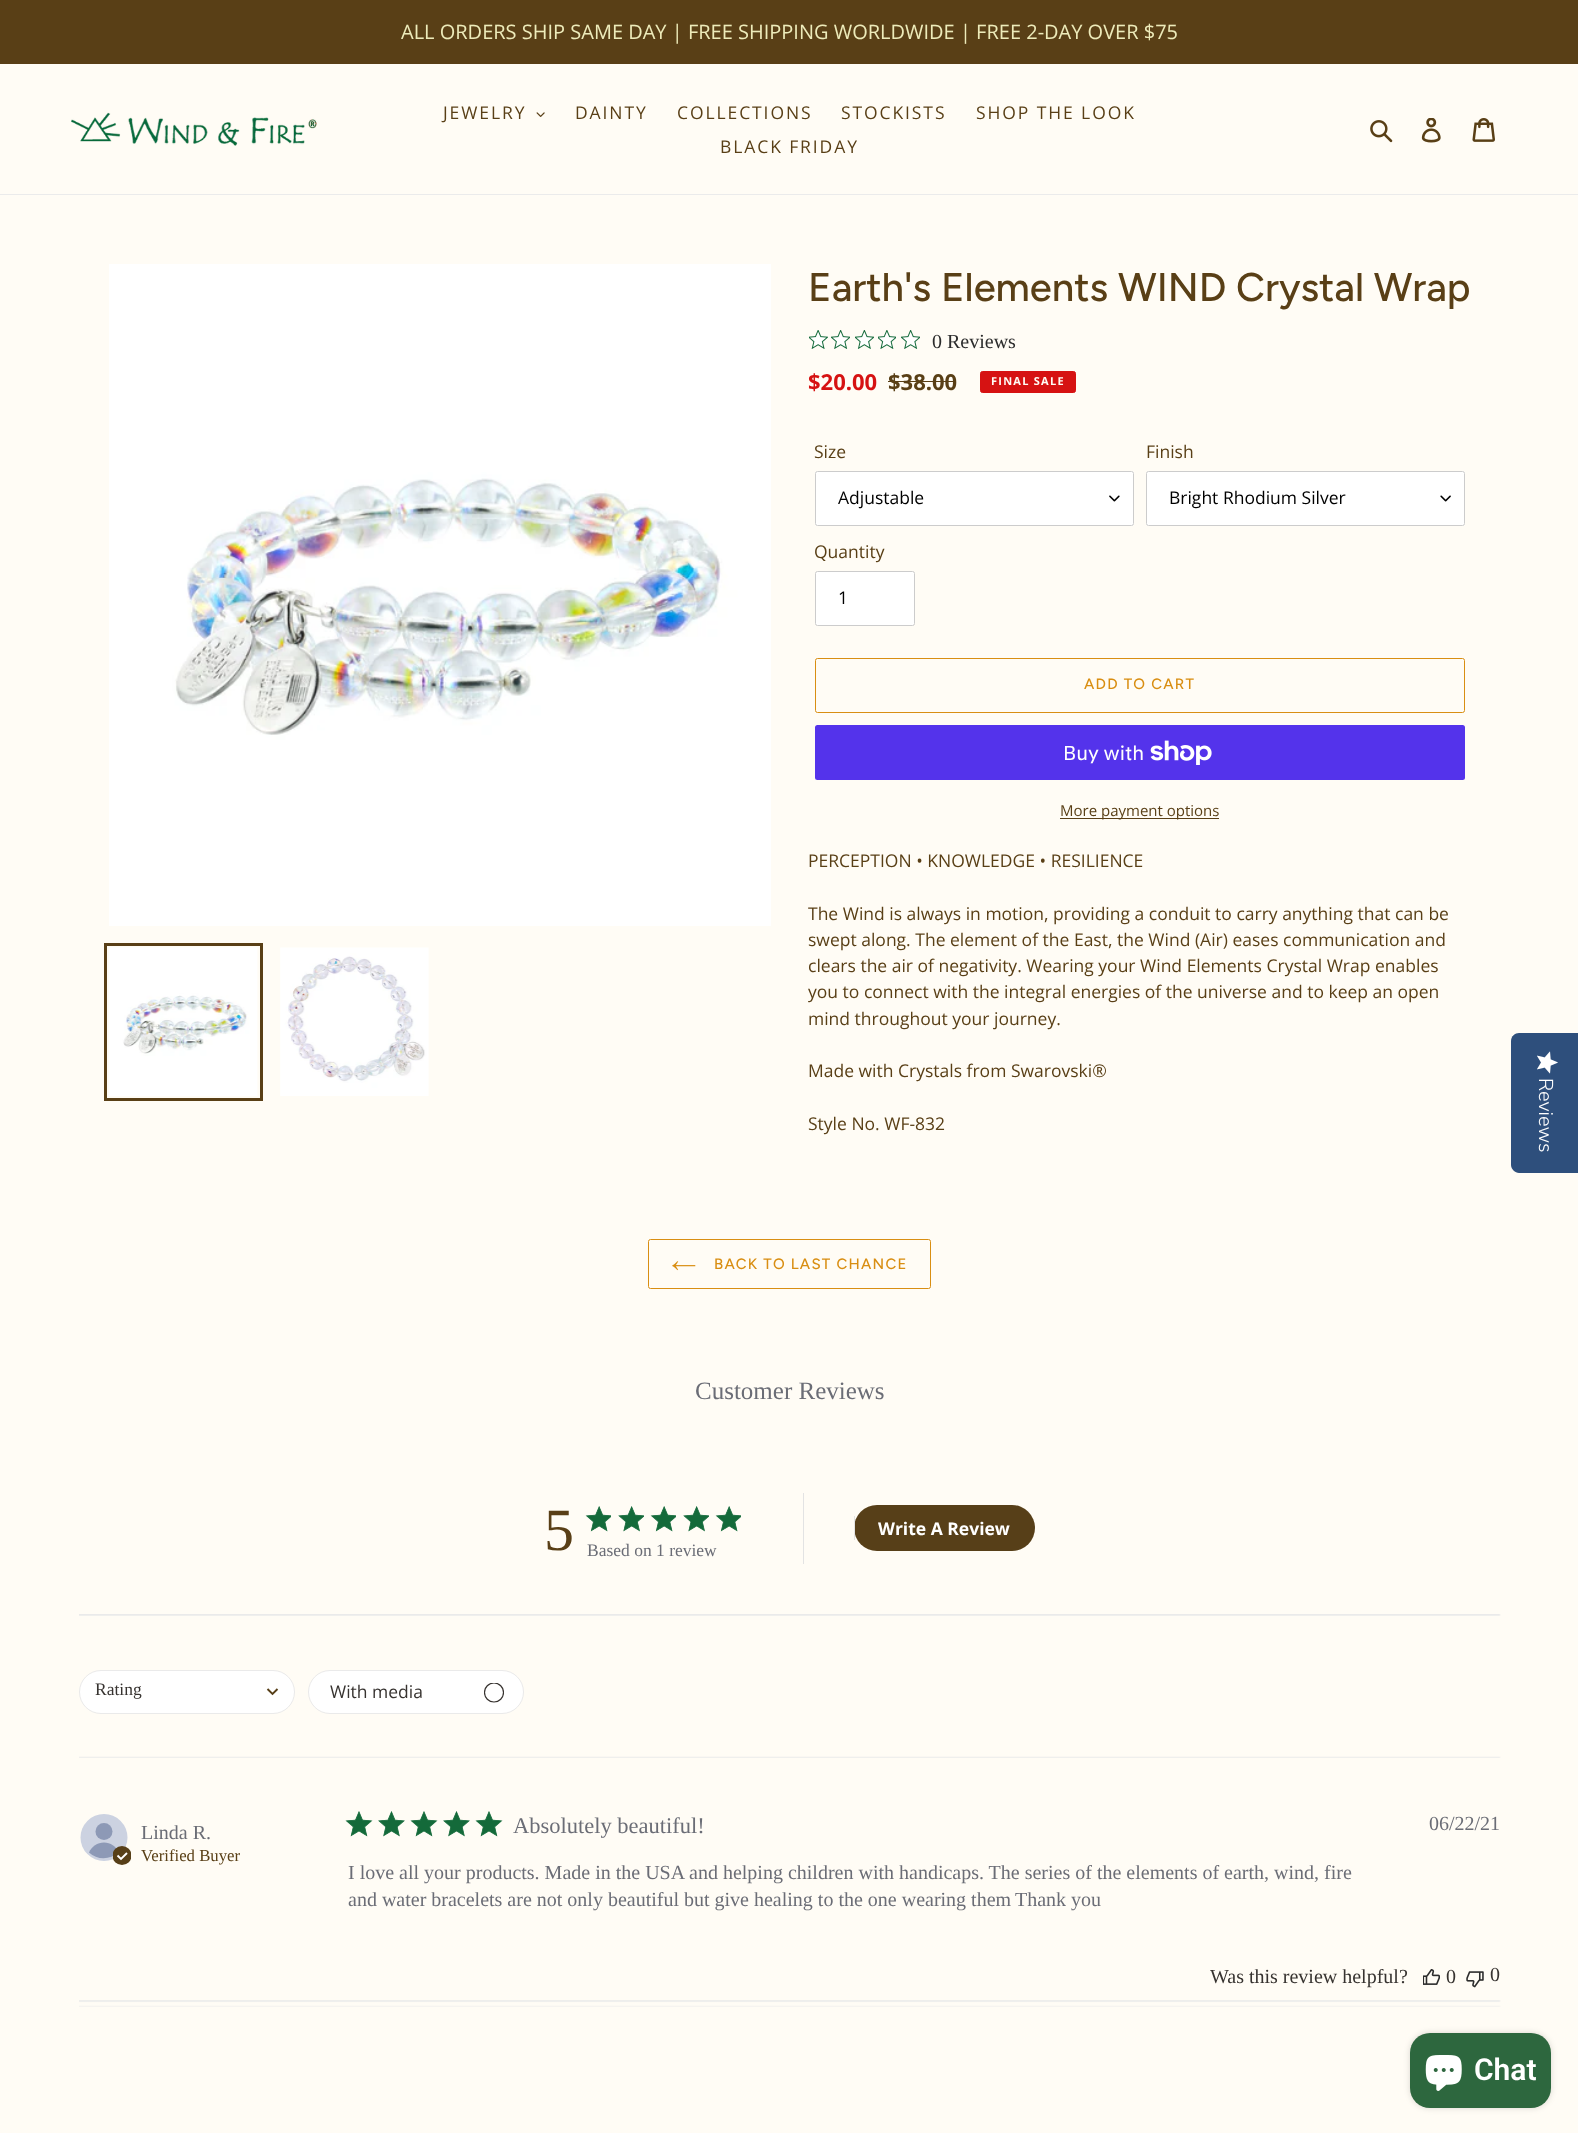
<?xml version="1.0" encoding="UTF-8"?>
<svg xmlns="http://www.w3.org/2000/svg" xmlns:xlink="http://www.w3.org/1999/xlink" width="1578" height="2133">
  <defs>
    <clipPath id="clip1"><rect x="484" y="1683" width="20" height="20" /></clipPath>
    <clipPath id="clip2"><rect x="113" y="1846" width="18" height="19" /></clipPath>
  </defs>
  <rect width="100%" height="100%" fill="#fffcf5" />
  <rect width="1578" height="64" fill="#593f16" />
  <rect y="194" width="1578" height="1" fill="#ebebeb" />
  <image x="71" y="112" width="246" height="34" xlink:href="image1.png" />
  <image x="536" y="112" width="9" height="5" xlink:href="image2.png" />
  <image x="1370" y="120" width="23" height="23" xlink:href="image3.png" />
  <image x="1421" y="118" width="20" height="25" xlink:href="image4.png" />
  <image x="1472" y="118" width="23" height="24" xlink:href="image5.png" />
  <image x="109" y="264" width="662" height="662" xlink:href="image6.png" />
  <rect x="105.5" y="944.5" width="156" height="155" fill="none" stroke="#593f16" stroke-width="3" />
  <image x="109" y="947" width="149" height="149" xlink:href="image7.png" />
  <image x="280" y="947" width="149" height="149" xlink:href="image8.png" />
  <image x="809" y="330" width="19" height="19" xlink:href="image9.png" />
  <image x="831" y="330" width="19" height="19" xlink:href="image10.png" />
  <image x="855" y="330" width="19" height="19" xlink:href="image11.png" />
  <image x="878" y="330" width="18" height="19" xlink:href="image12.png" />
  <image x="901" y="330" width="19" height="19" xlink:href="image10.png" />
  <rect x="888" y="381" width="68" height="1" fill="#593f16" />
  <rect x="980.5" y="371.5" width="95" height="21" rx="2" fill="#d61212" stroke="#d61212" />
  <rect x="815" y="471" width="319" height="55" rx="2.5" fill="#ffffff" />
  <image x="1109" y="495" width="11" height="7" xlink:href="image13.png" />
  <rect x="815.5" y="471.5" width="318" height="54" rx="2" fill="none" stroke="#cccccc" />
  <rect x="1146" y="471" width="319" height="55" rx="2.5" fill="#ffffff" />
  <image x="1440" y="495" width="11" height="7" xlink:href="image14.png" />
  <rect x="1146.5" y="471.5" width="318" height="54" rx="2" fill="none" stroke="#cccccc" />
  <rect x="815.5" y="571.5" width="99" height="54" rx="2" fill="#ffffff" stroke="#cccccc" />
  <rect x="815.5" y="658.5" width="649" height="54" rx="2" fill="none" stroke="#d98e12" />
  <rect x="815" y="725" width="650" height="55" rx="2.5" fill="#5433eb" />
  <image x="1150" y="740" width="62" height="25" xlink:href="image15.png" />
  <rect x="1060" y="818" width="159" height="1" fill="#593f16" />
  <rect x="648.5" y="1239.5" width="282" height="49" rx="2" fill="none" stroke="#d98e12" />
  <image x="672" y="1261" width="24" height="10" xlink:href="image16.png" />
  <image x="585" y="1506" width="26" height="26" xlink:href="image17.png" />
  <image x="618" y="1506" width="26" height="26" xlink:href="image18.png" />
  <image x="650" y="1506" width="26" height="26" xlink:href="image17.png" />
  <image x="683" y="1506" width="26" height="26" xlink:href="image18.png" />
  <image x="715" y="1506" width="26" height="26" xlink:href="image17.png" />
  <rect x="803" y="1493" width="1" height="71" fill="#e3e3e3" />
  <rect x="854" y="1505" width="181" height="46" rx="23" fill="#573f18" />
  <rect x="854" y="1516" width="1" height="24" fill="#e3e3e3" />
  <image x="79" y="1614" width="1422" height="2" xlink:href="image19.png" />
  <rect x="79.5" y="1670.5" width="215" height="43" rx="21.5" fill="#ffffff" stroke="#eaeaea" />
  <path d="M 267.5 1689 l 5 5 l 5 -5" fill="none" stroke="#573f18" stroke-width="1.9" />
  <rect x="308.5" y="1670.5" width="215" height="43" rx="21.5" fill="#ffffff" stroke="#eaeaea" />
  <g clip-path="url(#clip1)">
    <circle cx="494" cy="1692.5" r="9.5" fill="none" stroke="#373330" stroke-width="1.2" />
  </g>
  <image x="79" y="1756" width="1422" height="2" xlink:href="image20.png" />
  <circle cx="104" cy="1837.5" r="23.5" fill="#ccd2e1" />
  <circle cx="104" cy="1831.5" r="8.5" fill="#8d99b6" />
  <path d="M 104 1842.5 c 6.5 0 12 4 14.5 9.5 c -8 8 -21 8.5 -29.5 0.5 c 2.5 -6 8.5 -10 15 -10 z" fill="#8d99b6" />
  <g clip-path="url(#clip2)">
    <circle cx="122" cy="1855.5" r="9.5" fill="#573f18" />
  </g>
  <path d="M 117.5 1855.5 l 3.5 3.5 l 6 -6" fill="none" stroke="#ffffff" stroke-width="1.9" />
  <image x="345" y="1811" width="28" height="26" xlink:href="image21.png" />
  <image x="378" y="1811" width="27" height="26" xlink:href="image22.png" />
  <image x="410" y="1811" width="28" height="26" xlink:href="image21.png" />
  <image x="443" y="1811" width="27" height="26" xlink:href="image22.png" />
  <image x="475" y="1811" width="28" height="26" xlink:href="image21.png" />
  <image x="1423" y="1969" width="17" height="16" xlink:href="image23.png" />
  <image x="1466" y="1971" width="18" height="17" xlink:href="image24.png" />
  <image x="79" y="2000" width="1422" height="7" xlink:href="image25.png" />
  <path d="M 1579 1033 v 140 h -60 c -4 0 -8 -4 -8 -8 v -124 c 0 -5 4 -8 8 -8 z" fill="#2e4f7c" />
  <image x="1537" y="1051" width="21" height="23" xlink:href="image26.png" />
  <rect x="1410" y="2033" width="141" height="75" rx="20" fill="#000000" fill-opacity="0.15" filter="blur(3px)" />
  <rect x="1410" y="2033" width="141" height="75" rx="20" fill="#2d673e" />
  <image x="1425" y="2055" width="37" height="36" xlink:href="image27.png" />
  <text x="401" y="39" style="font-family: Open Sans; font-size: 20px; fill: #edebba">ALL ORDERS SHIP SAME DAY | FREE SHIPPING WORLDWIDE | FREE 2-DAY OVER $75</text>
  <text x="443" y="119" style="font-family: Open Sans; font-size: 17.5px; letter-spacing: 1.9px; fill: #593f16">JEWELRY</text>
  <text x="575" y="119" style="font-family: Open Sans; font-size: 17.5px; letter-spacing: 1.9px; fill: #593f16">DAINTY</text>
  <text x="677" y="119" style="font-family: Open Sans; font-size: 17.5px; letter-spacing: 1.9px; fill: #593f16">COLLECTIONS</text>
  <text x="841" y="119" style="font-family: Open Sans; font-size: 17.5px; letter-spacing: 1.9px; fill: #593f16">STOCKISTS</text>
  <text x="976" y="119" style="font-family: Open Sans; font-size: 17.5px; letter-spacing: 1.9px; fill: #593f16">SHOP THE LOOK</text>
  <text x="720" y="153" style="font-family: Open Sans; font-size: 17.5px; letter-spacing: 1.9px; fill: #593f16">BLACK FRIDAY</text>
  <text x="808" y="301" style="font-family: Figtree; font-size: 40px; font-weight: 500; fill: #593f16">Earth's Elements WIND Crystal Wrap</text>
  <text x="932" y="348" style="font-family: Liberation Serif; font-size: 20px; fill: #2c2c2c">0 Reviews</text>
  <text x="808" y="390" style="font-family: Open Sans; font-size: 22px; font-weight: bold; fill: #d61212">$20.00</text>
  <text x="888" y="390" style="font-family: Open Sans; font-size: 22px; font-weight: bold; fill: #593f16">$38.00</text>
  <text x="991" y="385" style="font-family: Open Sans; font-size: 11px; font-weight: bold; letter-spacing: 1.25px; fill: #fffcf5">FINAL SALE</text>
  <text x="814" y="458" style="font-family: Open Sans; font-size: 17.5px; fill: #593f16">Size</text>
  <text x="838" y="504" style="font-family: Open Sans; font-size: 17.5px; fill: #000000">Adjustable</text>
  <text x="1146" y="458" style="font-family: Open Sans; font-size: 17.5px; fill: #593f16">Finish</text>
  <text x="1169" y="504" style="font-family: Open Sans; font-size: 17.5px; fill: #000000">Bright Rhodium Silver</text>
  <text x="814" y="558" style="font-family: Open Sans; font-size: 17.5px; fill: #593f16">Quantity</text>
  <text x="838" y="604" style="font-family: Open Sans; font-size: 17.5px; fill: #000000">1</text>
  <text x="1084" y="689" style="font-family: Figtree; font-size: 15px; font-weight: 500; letter-spacing: 1.25px; fill: #d98e12">ADD TO CART</text>
  <text x="1063" y="760" style="font-family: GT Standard; font-size: 20px; fill: #ffffff">Buy with</text>
  <text x="1060" y="816" style="font-family: Open Sans; font-size: 15px; fill: #593f16">More payment options</text>
  <text x="808" y="867" style="font-family: Open Sans; font-size: 17.5px; fill: #593f16">PERCEPTION • KNOWLEDGE • RESILIENCE</text>
  <text x="808" y="920" style="font-family: Open Sans; font-size: 17.5px; fill: #593f16">The Wind is always in motion, providing a conduit to carry anything that can be</text>
  <text x="808" y="946" style="font-family: Open Sans; font-size: 17.5px; fill: #593f16">swept along. The element of the East, the Wind (Air) eases communication and</text>
  <text x="808" y="972" style="font-family: Open Sans; font-size: 17.5px; fill: #593f16">clears the air of negativity. Wearing your Wind Elements Crystal Wrap enables</text>
  <text x="808" y="998" style="font-family: Open Sans; font-size: 17.5px; fill: #593f16">you to connect with the integral energies of the universe and to keep an open</text>
  <text x="808" y="1025" style="font-family: Open Sans; font-size: 17.5px; fill: #593f16">mind throughout your journey.</text>
  <text x="808" y="1077" style="font-family: Open Sans; font-size: 17.5px; fill: #593f16">Made with Crystals from Swarovski®</text>
  <text x="808" y="1130" style="font-family: Open Sans; font-size: 17.5px; fill: #593f16">Style No. WF-832</text>
  <text x="714" y="1269" style="font-family: Figtree; font-size: 15px; font-weight: 500; letter-spacing: 1.25px; fill: #d98e12">BACK TO LAST CHANCE</text>
  <text x="695" y="1399" style="font-family: Liberation Serif; font-size: 25px; fill: #6b6d76">Customer Reviews</text>
  <text x="544" y="1550" style="font-family: Liberation Serif; font-size: 60px; fill: #593f16">5</text>
  <text x="587" y="1556" style="font-family: Liberation Serif; font-size: 17.5px; fill: #6b6d76">Based on 1 review</text>
  <text x="878" y="1535" style="font-family: Open Sans; font-size: 17.5px; font-weight: bold; fill: #ffffff">Write A Review</text>
  <text x="95" y="1695" style="font-family: Liberation Serif; font-size: 17.5px; fill: #373330">Rating</text>
  <text x="330" y="1698" style="font-family: Open Sans; font-size: 17.5px; fill: #373330">With media</text>
  <text x="141" y="1839" style="font-family: Liberation Serif; font-size: 20px; fill: #6b6d76">Linda R.</text>
  <text x="141" y="1861" style="font-family: Liberation Serif; font-size: 16.75px; fill: #593f16">Verified Buyer</text>
  <text x="513" y="1833" style="font-family: Liberation Serif; font-size: 22.5px; fill: #6b6d76">Absolutely beautiful!</text>
  <text x="348" y="1879" style="font-family: Liberation Serif; font-size: 20px; fill: #6b6d76">I love all your products. Made in the USA and helping children with handicaps. The series of the elements of earth, wind, fire</text>
  <text x="348" y="1906" style="font-family: Liberation Serif; font-size: 20px; fill: #6b6d76">and water bracelets are not only beautiful but give healing to the one wearing them</text>
  <text x="1015" y="1906" style="font-family: Liberation Serif; font-size: 20px; fill: #6b6d76">Thank you</text>
  <text x="1429" y="1830" style="font-family: Liberation Serif; font-size: 20px; fill: #6b6d76">06/22/21</text>
  <text x="1210" y="1983" style="font-family: Liberation Serif; font-size: 20px; fill: #373330">Was this review helpful?</text>
  <text x="1446" y="1983" style="font-family: Liberation Serif; font-size: 20px; fill: #373330">0</text>
  <text x="1490" y="1981" style="font-family: Liberation Serif; font-size: 20px; fill: #373330">0</text>
  <text x="1539" y="1078" transform="rotate(90 1539 1078)" style="font-family: Nunito Sans; font-size: 20px; font-weight: 300; fill: #ffffff">Reviews</text>
  <text x="1474" y="2080" style="font-family: Roboto; font-size: 30px; font-weight: 600; fill: #ffffff">Chat</text>
</svg>
